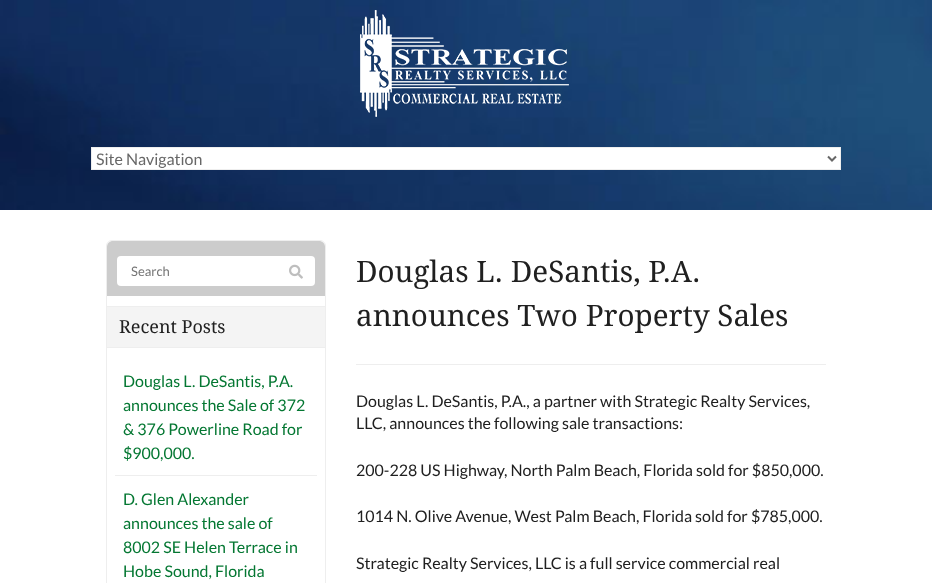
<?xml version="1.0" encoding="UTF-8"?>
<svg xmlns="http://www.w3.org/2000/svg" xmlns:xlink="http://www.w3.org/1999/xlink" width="932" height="583">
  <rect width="100%" height="100%" fill="#ffffff" />
  <image x="0" y="0" width="932" height="210" xlink:href="image1.png" />
  <image x="360" y="10" width="209" height="107" xlink:href="image2.png" />
  <rect x="91.5" y="147.5" width="749" height="22" fill="#ffffff" stroke="#eeeeee" />
  <path d="M 828 156.5 l 4 4 l 4 -4" fill="none" stroke="#676767" stroke-width="2" />
  <rect x="106.5" y="240.5" width="219" height="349" rx="5.5" fill="none" stroke="#eeeeee" />
  <path d="M 113 241 h 206 c 3.5 0 6 2.5 6 6 v 49 h -218 v -49 c 0 -3.5 2.5 -6 6 -6 z" fill="#cccccc" />
  <rect x="117" y="256" width="198" height="30" rx="4" fill="#ffffff" />
  <image x="289" y="264" width="14" height="15" xlink:href="image3.png" />
  <rect x="107" y="307" width="218" height="40" fill="#f4f4f4" />
  <rect x="107" y="306" width="218" height="1" fill="#eeeeee" />
  <rect x="107" y="347" width="218" height="1" fill="#eeeeee" />
  <rect x="115" y="475" width="202" height="1" fill="#eeeeee" />
  <rect x="356" y="364" width="470" height="1" fill="#eeeeee" />
  <text x="96" y="165" style="font-family: Lato; font-size: 16px; fill: #676767">Site Navigation</text>
  <text x="131" y="276" style="font-family: Lato; font-size: 13px; fill: #757575">Search</text>
  <text x="119" y="333" style="font-family: Droid Serif; font-size: 18px; fill: #202020">Recent Posts</text>
  <text x="123" y="387" style="font-family: Lato; font-size: 16px; fill: #047732">Douglas L. DeSantis, P.A.</text>
  <text x="123" y="411" style="font-family: Lato; font-size: 16px; fill: #047732">announces the Sale of 372</text>
  <text x="123" y="435" style="font-family: Lato; font-size: 16px; fill: #047732">&amp; 376 Powerline Road for</text>
  <text x="123" y="459" style="font-family: Lato; font-size: 16px; fill: #047732">$900,000.</text>
  <text x="123" y="505" style="font-family: Lato; font-size: 16px; fill: #047732">D. Glen Alexander</text>
  <text x="123" y="529" style="font-family: Lato; font-size: 16px; fill: #047732">announces the sale of</text>
  <text x="123" y="553" style="font-family: Lato; font-size: 16px; fill: #047732">8002 SE Helen Terrace in</text>
  <text x="123" y="577" style="font-family: Lato; font-size: 16px; fill: #047732">Hobe Sound, Florida</text>
  <text x="356" y="282" style="font-family: Droid Serif; font-size: 29.6px; fill: #202020">Douglas L. DeSantis, P.A.</text>
  <text x="356" y="326" style="font-family: Droid Serif; font-size: 29.6px; fill: #202020">announces Two Property Sales</text>
  <text x="356" y="407" style="font-family: Lato; font-size: 16px; fill: #202020">Douglas L. DeSantis, P.A., a partner with Strategic Realty Services,</text>
  <text x="356" y="429" style="font-family: Lato; font-size: 16px; fill: #202020">LLC, announces the following sale transactions:</text>
  <text x="356" y="476" style="font-family: Lato; font-size: 16px; fill: #202020">200-228 US Highway, North Palm Beach, Florida sold for $850,000.</text>
  <text x="356" y="522" style="font-family: Lato; font-size: 16px; fill: #202020">1014 N. Olive Avenue, West Palm Beach, Florida sold for $785,000.</text>
  <text x="356" y="569" style="font-family: Lato; font-size: 16px; fill: #202020">Strategic Realty Services, LLC is a full service commercial real</text>
</svg>
